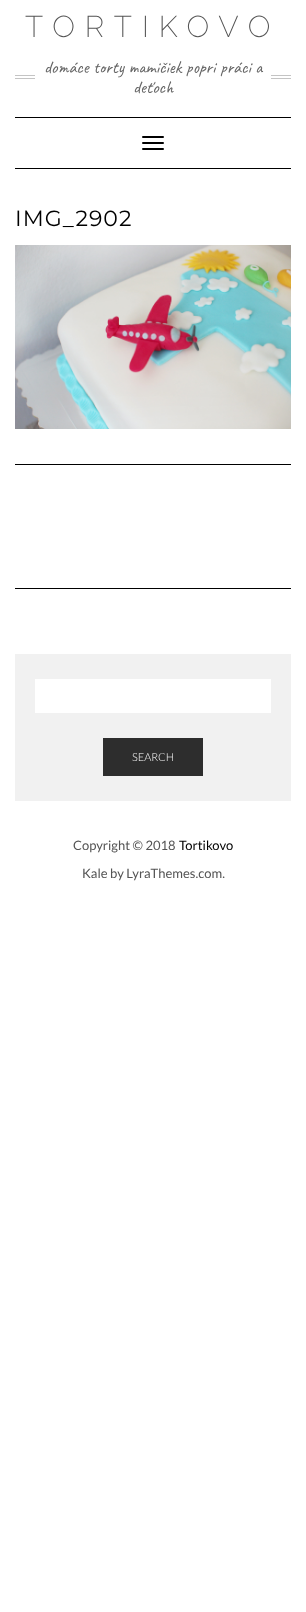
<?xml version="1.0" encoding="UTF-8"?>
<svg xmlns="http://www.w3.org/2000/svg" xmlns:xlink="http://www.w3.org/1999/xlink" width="306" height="1612">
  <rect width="100%" height="100%" fill="#ffffff" />
  <rect x="15" y="75" width="20" height="1" fill="#c4c4c4" />
  <rect x="15" y="78" width="20" height="1" fill="#c4c4c4" />
  <rect x="271" y="75" width="20" height="1" fill="#c4c4c4" />
  <rect x="271" y="78" width="20" height="1" fill="#c4c4c4" />
  <rect x="15" y="117" width="276" height="1" fill="#000000" />
  <rect x="15" y="168" width="276" height="1" fill="#000000" />
  <rect x="142" y="136" width="22" height="2" rx="1" fill="#000000" />
  <rect x="142" y="142" width="22" height="2" rx="1" fill="#000000" />
  <rect x="142" y="148" width="22" height="2" rx="1" fill="#000000" />
  <image x="15" y="245" width="276" height="184" xlink:href="image1.png" />
  <rect x="15" y="464" width="276" height="1" fill="#000000" />
  <rect x="15" y="588" width="276" height="1" fill="#000000" />
  <rect x="15" y="654" width="276" height="147" fill="#f1f1f1" />
  <rect x="35" y="679" width="236" height="34" fill="#ffffff" />
  <rect x="103" y="738" width="100" height="38" fill="#2d2d2d" />
  <text x="25" y="37" style="font-family: Raleway; font-size: 30px; font-weight: 100; letter-spacing: 10px; fill: #545454">TORTIKOVO</text>
  <text x="44" y="73" style="font-family: Caveat; font-size: 18px; fill: #646464">domáce torty mamičiek popri práci a</text>
  <text x="133" y="93" style="font-family: Caveat; font-size: 18px; fill: #646464">deťoch</text>
  <text x="15" y="226" style="font-family: Montserrat; font-size: 22px; letter-spacing: 1px; fill: #000000">IMG_2902</text>
  <text x="132" y="761" style="font-family: Lato; font-size: 11px; font-weight: 300; fill: #ffffff">SEARCH</text>
  <text x="73" y="850" style="font-family: Lato; font-size: 13px; fill: #545454">Copyright © 2018</text>
  <text x="179" y="850" style="font-family: Lato; font-size: 13px; fill: #000000">Tortikovo</text>
  <text x="82" y="878" style="font-family: Lato; font-size: 13px; fill: #545454">Kale by LyraThemes.com.</text>
</svg>
